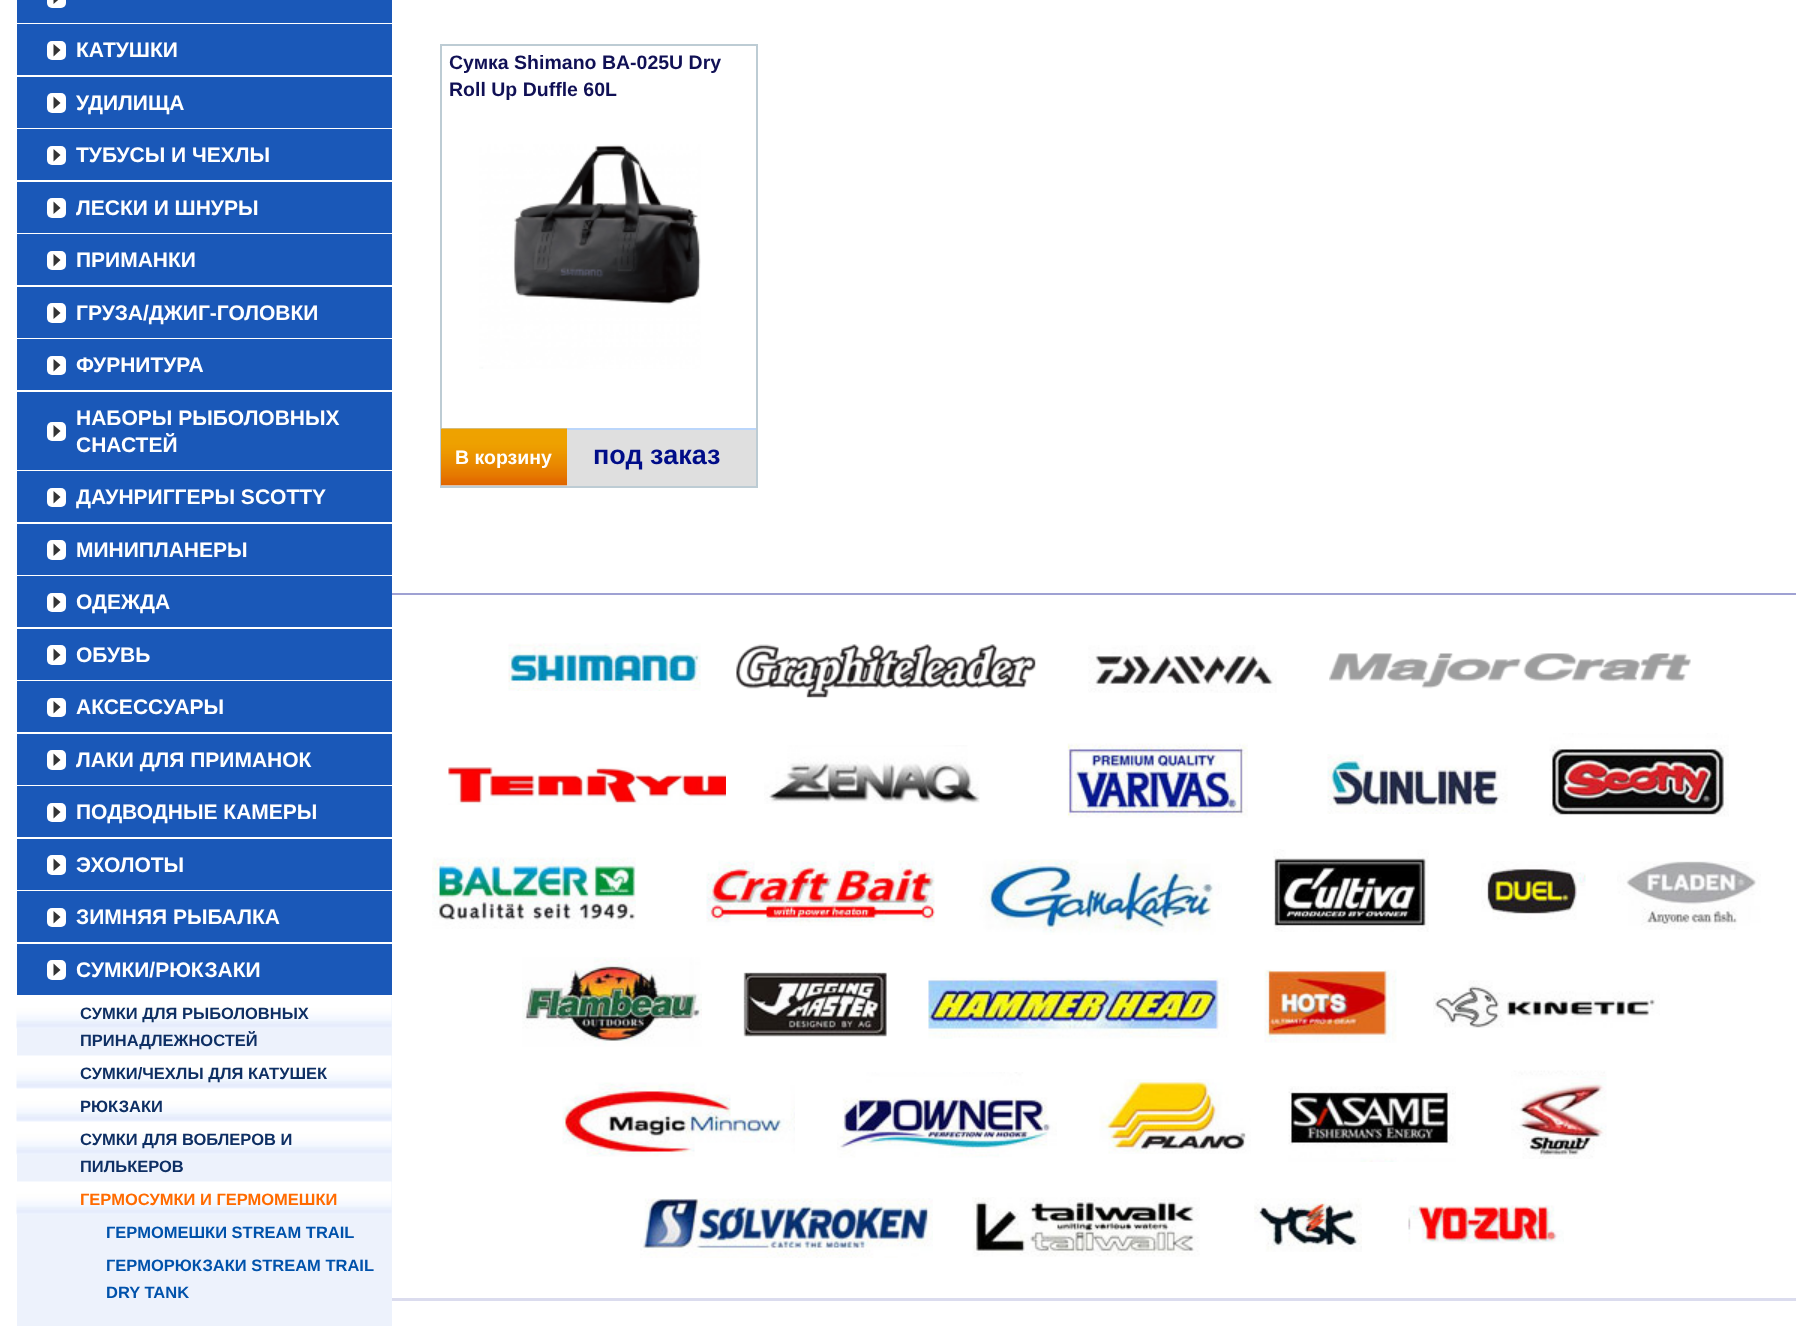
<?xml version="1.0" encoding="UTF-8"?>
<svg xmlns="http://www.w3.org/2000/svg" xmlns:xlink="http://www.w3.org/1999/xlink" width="1810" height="1326">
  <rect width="100%" height="100%" fill="#ffffff" />
  <rect x="17" width="375" height="23" fill="#1a58b8" />
  <rect x="47" y="-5" width="19" height="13" rx="5" fill="#ffffff" />
  <path d="M 60.5 -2 l -7 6 v -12.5 z" fill="#333333" />
  <rect x="17" y="24" width="375" height="51" fill="#1a58b8" />
  <rect x="47" y="41" width="19" height="19" rx="5" fill="#ffffff" />
  <path d="M 60.5 50 l -7 6.5 v -12.5 z" fill="#333333" />
  <rect x="17" y="77" width="375" height="51" fill="#1a58b8" />
  <rect x="47" y="93" width="19" height="20" rx="5" fill="#ffffff" />
  <path d="M 60.5 103 l -7 6 v -12.5 z" fill="#333333" />
  <rect x="17" y="129" width="375" height="51" fill="#1a58b8" />
  <rect x="47" y="146" width="19" height="19" rx="5" fill="#ffffff" />
  <path d="M 60.5 155 l -7 6.5 v -12.5 z" fill="#333333" />
  <rect x="17" y="182" width="375" height="51" fill="#1a58b8" />
  <rect x="47" y="198" width="19" height="20" rx="5" fill="#ffffff" />
  <path d="M 60.5 208 l -7 6 v -12.5 z" fill="#333333" />
  <rect x="17" y="234" width="375" height="51" fill="#1a58b8" />
  <rect x="47" y="251" width="19" height="19" rx="5" fill="#ffffff" />
  <path d="M 60.5 260 l -7 6.5 v -12.5 z" fill="#333333" />
  <rect x="17" y="287" width="375" height="51" fill="#1a58b8" />
  <rect x="47" y="303" width="19" height="20" rx="5" fill="#ffffff" />
  <path d="M 60.5 313 l -7 6 v -12.5 z" fill="#333333" />
  <rect x="17" y="339" width="375" height="51" fill="#1a58b8" />
  <rect x="47" y="356" width="19" height="19" rx="5" fill="#ffffff" />
  <path d="M 60.5 365 l -7 6.5 v -12.5 z" fill="#333333" />
  <rect x="17" y="392" width="375" height="78" fill="#1a58b8" />
  <rect x="47" y="422" width="19" height="19" rx="5" fill="#ffffff" />
  <path d="M 60.5 431 l -7 6.5 v -12.5 z" fill="#333333" />
  <rect x="17" y="471" width="375" height="51" fill="#1a58b8" />
  <rect x="47" y="488" width="19" height="19" rx="5" fill="#ffffff" />
  <path d="M 60.5 497 l -7 6.5 v -12.5 z" fill="#333333" />
  <rect x="17" y="524" width="375" height="51" fill="#1a58b8" />
  <rect x="47" y="540" width="19" height="20" rx="5" fill="#ffffff" />
  <path d="M 60.5 550 l -7 6 v -12.5 z" fill="#333333" />
  <rect x="17" y="576" width="375" height="51" fill="#1a58b8" />
  <rect x="47" y="593" width="19" height="19" rx="5" fill="#ffffff" />
  <path d="M 60.5 602 l -7 6.5 v -12.5 z" fill="#333333" />
  <rect x="17" y="629" width="375" height="51" fill="#1a58b8" />
  <rect x="47" y="645" width="19" height="20" rx="5" fill="#ffffff" />
  <path d="M 60.5 655 l -7 6 v -12.5 z" fill="#333333" />
  <rect x="17" y="681" width="375" height="51" fill="#1a58b8" />
  <rect x="47" y="698" width="19" height="19" rx="5" fill="#ffffff" />
  <path d="M 60.5 707 l -7 6.5 v -12.5 z" fill="#333333" />
  <rect x="17" y="734" width="375" height="51" fill="#1a58b8" />
  <rect x="47" y="750" width="19" height="20" rx="5" fill="#ffffff" />
  <path d="M 60.5 760 l -7 6 v -12.5 z" fill="#333333" />
  <rect x="17" y="786" width="375" height="51" fill="#1a58b8" />
  <rect x="47" y="803" width="19" height="19" rx="5" fill="#ffffff" />
  <path d="M 60.5 812 l -7 6.5 v -12.5 z" fill="#333333" />
  <rect x="17" y="839" width="375" height="51" fill="#1a58b8" />
  <rect x="47" y="855" width="19" height="20" rx="5" fill="#ffffff" />
  <path d="M 60.5 865 l -7 6 v -12.5 z" fill="#333333" />
  <rect x="17" y="891" width="375" height="51" fill="#1a58b8" />
  <rect x="47" y="908" width="19" height="19" rx="5" fill="#ffffff" />
  <path d="M 60.5 917 l -7 6.5 v -12.5 z" fill="#333333" />
  <rect x="17" y="944" width="375" height="51" fill="#1a58b8" />
  <rect x="47" y="960" width="19" height="20" rx="5" fill="#ffffff" />
  <path d="M 60.5 970 l -7 6 v -12.5 z" fill="#333333" />
  <rect x="17" y="996" width="375" height="330" fill="#edf2fc" />
  <image x="16" y="996" width="376" height="33" xlink:href="image1.png" />
  <image x="16" y="1055" width="376" height="34" xlink:href="image2.png" />
  <image x="16" y="1088" width="376" height="34" xlink:href="image3.png" />
  <image x="16" y="1121" width="376" height="34" xlink:href="image3.png" />
  <image x="16" y="1181" width="376" height="34" xlink:href="image2.png" />
  <rect x="441" y="45" width="316" height="442" fill="none" stroke="#bdccd4" stroke-width="2" />
  <image x="479" y="144" width="222" height="225" xlink:href="image4.png" />
  <rect x="441" y="430" width="315" height="56" fill="#d2d2d2" fill-opacity="0.7" />
  <rect x="441" y="428" width="315" height="2" fill="#bbd6fb" />
  <image x="441" y="428" width="126" height="58" xlink:href="image5.png" />
  <rect x="392" y="593" width="1404" height="2" fill="#9fa1d3" />
  <rect x="392" y="1298" width="1404" height="3" fill="#dbdcee" />
  <image x="508" y="643" width="193" height="48" xlink:href="image6.png" />
  <image x="736" y="644" width="300" height="54" xlink:href="image7.png" />
  <image x="1088" y="645" width="189" height="48" xlink:href="image8.png" />
  <image x="1329" y="653" width="362" height="36" xlink:href="image9.png" />
  <image x="448" y="767" width="278" height="38" xlink:href="image10.png" />
  <image x="764" y="745" width="216" height="59" xlink:href="image11.png" />
  <image x="1067" y="743" width="181" height="75" xlink:href="image12.png" />
  <image x="1327" y="754" width="181" height="60" xlink:href="image13.png" />
  <image x="1549" y="733" width="180" height="84" xlink:href="image14.png" />
  <image x="432" y="857" width="204" height="72" xlink:href="image15.png" />
  <image x="706" y="860" width="229" height="66" xlink:href="image16.png" />
  <image x="979" y="859" width="243" height="76" xlink:href="image17.png" />
  <image x="1273" y="849" width="156" height="83" xlink:href="image18.png" />
  <image x="1481" y="861" width="105" height="59" xlink:href="image19.png" />
  <image x="1617" y="861" width="144" height="69" xlink:href="image20.png" />
  <image x="522" y="957" width="180" height="90" xlink:href="image21.png" />
  <image x="743" y="972" width="144" height="65" xlink:href="image22.png" />
  <image x="928" y="977" width="301" height="62" xlink:href="image23.png" />
  <image x="1264" y="969" width="133" height="74" xlink:href="image24.png" />
  <image x="1433" y="980" width="227" height="48" xlink:href="image25.png" />
  <image x="562" y="1082" width="233" height="75" xlink:href="image26.png" />
  <image x="837" y="1072" width="220" height="86" xlink:href="image27.png" />
  <image x="1099" y="1079" width="152" height="75" xlink:href="image28.png" />
  <image x="1288" y="1086" width="168" height="76" xlink:href="image29.png" />
  <image x="1511" y="1070" width="96" height="89" xlink:href="image30.png" />
  <image x="640" y="1198" width="293" height="60" xlink:href="image31.png" />
  <image x="972" y="1197" width="228" height="60" xlink:href="image32.png" />
  <image x="1254" y="1198" width="108" height="54" xlink:href="image33.png" />
  <image x="1408" y="1205" width="156" height="39" xlink:href="image34.png" />
  <text x="76" y="57" style="font-family: Liberation Sans; font-size: 21px; font-weight: bold; fill: #ffffff">КАТУШКИ</text>
  <text x="76" y="110" style="font-family: Liberation Sans; font-size: 21px; font-weight: bold; fill: #ffffff">УДИЛИЩА</text>
  <text x="76" y="162" style="font-family: Liberation Sans; font-size: 21px; font-weight: bold; fill: #ffffff">ТУБУСЫ И ЧЕХЛЫ</text>
  <text x="76" y="215" style="font-family: Liberation Sans; font-size: 21px; font-weight: bold; fill: #ffffff">ЛЕСКИ И ШНУРЫ</text>
  <text x="76" y="267" style="font-family: Liberation Sans; font-size: 21px; font-weight: bold; fill: #ffffff">ПРИМАНКИ</text>
  <text x="76" y="320" style="font-family: Liberation Sans; font-size: 21px; font-weight: bold; fill: #ffffff">ГРУЗА/ДЖИГ-ГОЛОВКИ</text>
  <text x="76" y="372" style="font-family: Liberation Sans; font-size: 21px; font-weight: bold; fill: #ffffff">ФУРНИТУРА</text>
  <text x="76" y="425" style="font-family: Liberation Sans; font-size: 21px; font-weight: bold; fill: #ffffff">НАБОРЫ РЫБОЛОВНЫХ</text>
  <text x="76" y="452" style="font-family: Liberation Sans; font-size: 21px; font-weight: bold; fill: #ffffff">СНАСТЕЙ</text>
  <text x="76" y="504" style="font-family: Liberation Sans; font-size: 21px; font-weight: bold; fill: #ffffff">ДАУНРИГГЕРЫ SCOTTY</text>
  <text x="76" y="557" style="font-family: Liberation Sans; font-size: 21px; font-weight: bold; fill: #ffffff">МИНИПЛАНЕРЫ</text>
  <text x="76" y="609" style="font-family: Liberation Sans; font-size: 21px; font-weight: bold; fill: #ffffff">ОДЕЖДА</text>
  <text x="76" y="662" style="font-family: Liberation Sans; font-size: 21px; font-weight: bold; fill: #ffffff">ОБУВЬ</text>
  <text x="76" y="714" style="font-family: Liberation Sans; font-size: 21px; font-weight: bold; fill: #ffffff">АКСЕССУАРЫ</text>
  <text x="76" y="767" style="font-family: Liberation Sans; font-size: 21px; font-weight: bold; fill: #ffffff">ЛАКИ ДЛЯ ПРИМАНОК</text>
  <text x="76" y="819" style="font-family: Liberation Sans; font-size: 21px; font-weight: bold; fill: #ffffff">ПОДВОДНЫЕ КАМЕРЫ</text>
  <text x="76" y="872" style="font-family: Liberation Sans; font-size: 21px; font-weight: bold; fill: #ffffff">ЭХОЛОТЫ</text>
  <text x="76" y="924" style="font-family: Liberation Sans; font-size: 21px; font-weight: bold; fill: #ffffff">ЗИМНЯЯ РЫБАЛКА</text>
  <text x="76" y="977" style="font-family: Liberation Sans; font-size: 21px; font-weight: bold; fill: #ffffff">СУМКИ/РЮКЗАКИ</text>
  <text x="80" y="1019" style="font-family: Liberation Sans; font-size: 16.5px; font-weight: bold; fill: #0e2f64">СУМКИ ДЛЯ РЫБОЛОВНЫХ</text>
  <text x="80" y="1046" style="font-family: Liberation Sans; font-size: 16.5px; font-weight: bold; fill: #0e2f64">ПРИНАДЛЕЖНОСТЕЙ</text>
  <text x="80" y="1079" style="font-family: Liberation Sans; font-size: 16.5px; font-weight: bold; fill: #0e2f64">СУМКИ/ЧЕХЛЫ ДЛЯ КАТУШЕК</text>
  <text x="80" y="1112" style="font-family: Liberation Sans; font-size: 16.5px; font-weight: bold; fill: #0e2f64">РЮКЗАКИ</text>
  <text x="80" y="1145" style="font-family: Liberation Sans; font-size: 16.5px; font-weight: bold; fill: #0e2f64">СУМКИ ДЛЯ ВОБЛЕРОВ И</text>
  <text x="80" y="1172" style="font-family: Liberation Sans; font-size: 16.5px; font-weight: bold; fill: #0e2f64">ПИЛЬКЕРОВ</text>
  <text x="80" y="1205" style="font-family: Liberation Sans; font-size: 16.5px; font-weight: bold; fill: #ff6b00">ГЕРМОСУМКИ И ГЕРМОМЕШКИ</text>
  <text x="106" y="1238" style="font-family: Liberation Sans; font-size: 16.5px; font-weight: bold; fill: #0052ab">ГЕРМОМЕШКИ STREAM TRAIL</text>
  <text x="106" y="1271" style="font-family: Liberation Sans; font-size: 16.5px; font-weight: bold; fill: #0052ab">ГЕРМОРЮКЗАКИ STREAM TRAIL</text>
  <text x="106" y="1298" style="font-family: Liberation Sans; font-size: 16.5px; font-weight: bold; fill: #0052ab">DRY TANK</text>
  <text x="449" y="69" style="font-family: Liberation Sans; font-size: 19.5px; font-weight: bold; fill: #101055">Сумка Shimano BA-025U Dry</text>
  <text x="449" y="96" style="font-family: Liberation Sans; font-size: 19.5px; font-weight: bold; fill: #101055">Roll Up Duffle 60L</text>
  <text x="455" y="464" style="font-family: Liberation Sans; font-size: 19.5px; font-weight: bold; fill: #ffffff">В корзину</text>
  <text x="593" y="464" style="font-family: Liberation Sans; font-size: 27px; font-weight: bold; fill: #000d88">под заказ</text>
</svg>
